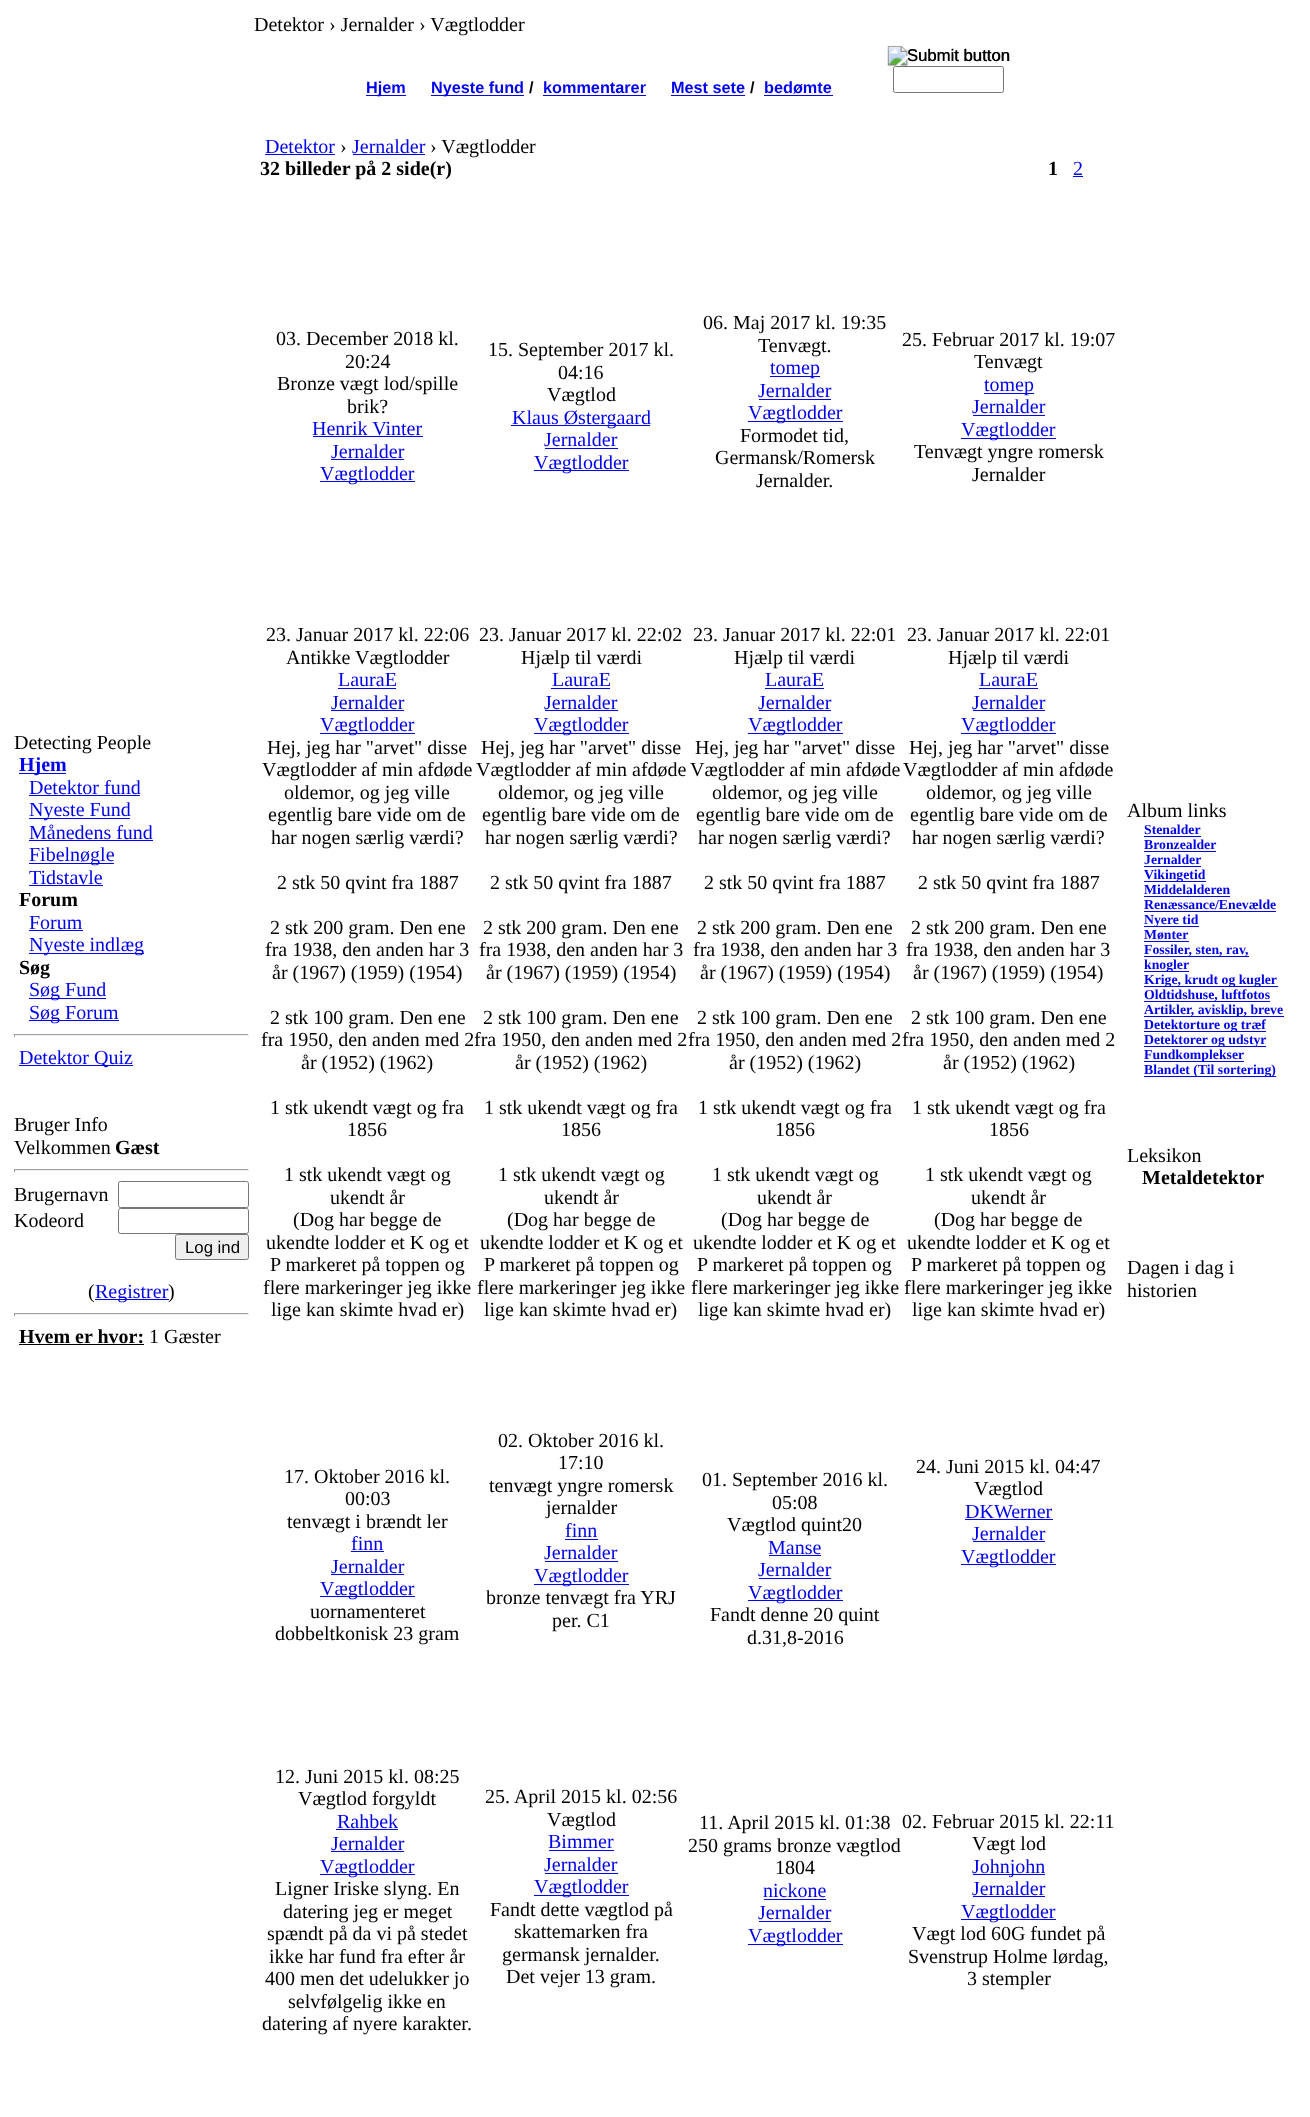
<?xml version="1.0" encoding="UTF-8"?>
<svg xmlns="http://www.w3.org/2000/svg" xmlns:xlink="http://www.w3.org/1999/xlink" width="1310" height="2117">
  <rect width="100%" height="100%" fill="#ffffff" />
  <rect x="19" y="773" width="47" height="1" fill="#0000ee" />
  <rect x="29" y="795" width="111" height="1" fill="#0000ee" />
  <rect x="29" y="818" width="101" height="1" fill="#0000ee" />
  <rect x="29" y="840" width="124" height="1" fill="#0000ee" />
  <rect x="29" y="863" width="85" height="1" fill="#0000ee" />
  <rect x="29" y="885" width="74" height="1" fill="#0000ee" />
  <rect x="29" y="930" width="54" height="1" fill="#0000ee" />
  <rect x="29" y="953" width="115" height="1" fill="#0000ee" />
  <rect x="29" y="998" width="77" height="1" fill="#0000ee" />
  <rect x="29" y="1020" width="90" height="1" fill="#0000ee" />
  <rect x="14" y="1034" width="235" height="1" fill="#9f9f9f" />
  <rect x="248" y="1034" width="1" height="3" fill="#eeeeee" />
  <rect x="14" y="1035" width="235" height="1" fill="#eeeeee" />
  <rect x="14" y="1034" width="1" height="3" fill="#9f9f9f" />
  <rect x="19" y="1065" width="114" height="1" fill="#0000ee" />
  <rect x="14" y="1169" width="235" height="1" fill="#9f9f9f" />
  <rect x="248" y="1169" width="1" height="3" fill="#eeeeee" />
  <rect x="14" y="1170" width="235" height="1" fill="#eeeeee" />
  <rect x="14" y="1169" width="1" height="3" fill="#9f9f9f" />
  <rect x="118.5" y="1181.5" width="130" height="26" rx="2" fill="none" stroke="#767676" />
  <rect x="118.5" y="1208.5" width="130" height="25" rx="2" fill="none" stroke="#767676" />
  <rect x="175.5" y="1234.5" width="73" height="25" rx="2" fill="#efefef" stroke="#767676" />
  <rect x="95" y="1299" width="74" height="1" fill="#0000ee" />
  <rect x="14" y="1313" width="235" height="1" fill="#9f9f9f" />
  <rect x="248" y="1313" width="1" height="3" fill="#eeeeee" />
  <rect x="14" y="1314" width="235" height="1" fill="#eeeeee" />
  <rect x="14" y="1313" width="1" height="3" fill="#9f9f9f" />
  <rect x="19" y="1344" width="125" height="1" fill="#000000" />
  <image x="887" y="45" width="122" height="21" xlink:href="image1.png" />
  <rect x="893.5" y="66.5" width="110" height="26" rx="2" fill="none" stroke="#767676" />
  <rect x="366" y="95" width="40" height="1" fill="#0000ee" />
  <rect x="431" y="95" width="93" height="1" fill="#0000ee" />
  <rect x="543" y="95" width="103" height="1" fill="#0000ee" />
  <rect x="671" y="95" width="74" height="1" fill="#0000ee" />
  <rect x="764" y="95" width="69" height="1" fill="#0000ee" />
  <rect x="265" y="154" width="70" height="1" fill="#0000ee" />
  <rect x="353" y="154" width="72" height="1" fill="#0000ee" />
  <rect x="1073" y="176" width="10" height="1" fill="#0000ee" />
  <rect x="313" y="436" width="110" height="1" fill="#0000ee" />
  <rect x="331" y="459" width="73" height="1" fill="#0000ee" />
  <rect x="320" y="481" width="95" height="1" fill="#0000ee" />
  <rect x="511" y="425" width="139" height="1" fill="#0000ee" />
  <rect x="545" y="448" width="73" height="1" fill="#0000ee" />
  <rect x="534" y="470" width="95" height="1" fill="#0000ee" />
  <rect x="770" y="376" width="50" height="1" fill="#0000ee" />
  <rect x="759" y="399" width="72" height="1" fill="#0000ee" />
  <rect x="748" y="421" width="95" height="1" fill="#0000ee" />
  <rect x="984" y="393" width="50" height="1" fill="#0000ee" />
  <rect x="973" y="415" width="72" height="1" fill="#0000ee" />
  <rect x="961" y="438" width="95" height="1" fill="#0000ee" />
  <rect x="338" y="688" width="58" height="1" fill="#0000ee" />
  <rect x="331" y="710" width="73" height="1" fill="#0000ee" />
  <rect x="320" y="733" width="95" height="1" fill="#0000ee" />
  <rect x="551" y="688" width="59" height="1" fill="#0000ee" />
  <rect x="545" y="710" width="73" height="1" fill="#0000ee" />
  <rect x="534" y="733" width="95" height="1" fill="#0000ee" />
  <rect x="765" y="688" width="59" height="1" fill="#0000ee" />
  <rect x="759" y="710" width="72" height="1" fill="#0000ee" />
  <rect x="748" y="733" width="95" height="1" fill="#0000ee" />
  <rect x="979" y="688" width="59" height="1" fill="#0000ee" />
  <rect x="973" y="710" width="72" height="1" fill="#0000ee" />
  <rect x="961" y="733" width="95" height="1" fill="#0000ee" />
  <rect x="351" y="1551" width="33" height="1" fill="#0000ee" />
  <rect x="331" y="1574" width="73" height="1" fill="#0000ee" />
  <rect x="320" y="1596" width="95" height="1" fill="#0000ee" />
  <rect x="565" y="1539" width="33" height="1" fill="#0000ee" />
  <rect x="545" y="1561" width="73" height="1" fill="#0000ee" />
  <rect x="534" y="1584" width="95" height="1" fill="#0000ee" />
  <rect x="769" y="1555" width="52" height="1" fill="#0000ee" />
  <rect x="759" y="1578" width="72" height="1" fill="#0000ee" />
  <rect x="748" y="1600" width="95" height="1" fill="#0000ee" />
  <rect x="965" y="1519" width="88" height="1" fill="#0000ee" />
  <rect x="973" y="1541" width="72" height="1" fill="#0000ee" />
  <rect x="961" y="1564" width="95" height="1" fill="#0000ee" />
  <rect x="336" y="1829" width="62" height="1" fill="#0000ee" />
  <rect x="331" y="1851" width="73" height="1" fill="#0000ee" />
  <rect x="320" y="1874" width="95" height="1" fill="#0000ee" />
  <rect x="549" y="1850" width="65" height="1" fill="#0000ee" />
  <rect x="545" y="1873" width="73" height="1" fill="#0000ee" />
  <rect x="534" y="1895" width="95" height="1" fill="#0000ee" />
  <rect x="764" y="1899" width="62" height="1" fill="#0000ee" />
  <rect x="759" y="1921" width="72" height="1" fill="#0000ee" />
  <rect x="748" y="1944" width="95" height="1" fill="#0000ee" />
  <rect x="973" y="1874" width="72" height="1" fill="#0000ee" />
  <rect x="973" y="1896" width="72" height="1" fill="#0000ee" />
  <rect x="961" y="1919" width="95" height="1" fill="#0000ee" />
  <rect x="1144" y="836" width="57" height="1" fill="#0000ee" />
  <rect x="1144" y="851" width="72" height="1" fill="#0000ee" />
  <rect x="1144" y="866" width="57" height="1" fill="#0000ee" />
  <rect x="1144" y="881" width="62" height="1" fill="#0000ee" />
  <rect x="1144" y="896" width="86" height="1" fill="#0000ee" />
  <rect x="1144" y="911" width="132" height="1" fill="#0000ee" />
  <rect x="1144" y="926" width="55" height="1" fill="#0000ee" />
  <rect x="1144" y="941" width="45" height="1" fill="#0000ee" />
  <rect x="1144" y="956" width="105" height="1" fill="#0000ee" />
  <rect x="1144" y="971" width="45" height="1" fill="#0000ee" />
  <rect x="1144" y="986" width="134" height="1" fill="#0000ee" />
  <rect x="1144" y="1001" width="126" height="1" fill="#0000ee" />
  <rect x="1144" y="1016" width="140" height="1" fill="#0000ee" />
  <rect x="1144" y="1031" width="122" height="1" fill="#0000ee" />
  <rect x="1144" y="1046" width="122" height="1" fill="#0000ee" />
  <rect x="1144" y="1061" width="100" height="1" fill="#0000ee" />
  <rect x="1144" y="1076" width="132" height="1" fill="#0000ee" />
  <text x="14" y="749" style="font-family: Liberation Serif; font-size: 20px; fill: #000000">Detecting People</text>
  <text x="19" y="771" style="font-family: Liberation Serif; font-size: 20px; font-weight: bold; fill: #0000ee">Hjem</text>
  <text x="29" y="794" style="font-family: Liberation Serif; font-size: 20px; fill: #0000ee">Detektor fund</text>
  <text x="29" y="816" style="font-family: Liberation Serif; font-size: 20px; fill: #0000ee">Nyeste Fund</text>
  <text x="29" y="839" style="font-family: Liberation Serif; font-size: 20px; fill: #0000ee">Månedens fund</text>
  <text x="29" y="861" style="font-family: Liberation Serif; font-size: 20px; fill: #0000ee">Fibelnøgle</text>
  <text x="29" y="884" style="font-family: Liberation Serif; font-size: 20px; fill: #0000ee">Tidstavle</text>
  <text x="19" y="906" style="font-family: Liberation Serif; font-size: 20px; font-weight: bold; fill: #000000">Forum</text>
  <text x="29" y="929" style="font-family: Liberation Serif; font-size: 20px; fill: #0000ee">Forum</text>
  <text x="29" y="951" style="font-family: Liberation Serif; font-size: 20px; fill: #0000ee">Nyeste indlæg</text>
  <text x="19" y="974" style="font-family: Liberation Serif; font-size: 20px; font-weight: bold; fill: #000000">Søg</text>
  <text x="29" y="996" style="font-family: Liberation Serif; font-size: 20px; fill: #0000ee">Søg Fund</text>
  <text x="29" y="1019" style="font-family: Liberation Serif; font-size: 20px; fill: #0000ee">Søg Forum</text>
  <text x="19" y="1064" style="font-family: Liberation Serif; font-size: 20px; fill: #0000ee">Detektor Quiz</text>
  <text x="14" y="1131" style="font-family: Liberation Serif; font-size: 20px; fill: #000000">Bruger Info</text>
  <text x="14" y="1154" style="font-family: Liberation Serif; font-size: 20px; fill: #000000">Velkommen</text>
  <text x="115" y="1154" style="font-family: Liberation Serif; font-size: 20px; font-weight: bold; fill: #000000">Gæst</text>
  <text x="14" y="1201" style="font-family: Liberation Serif; font-size: 20px; fill: #000000">Brugernavn</text>
  <text x="14" y="1227" style="font-family: Liberation Serif; font-size: 20px; fill: #000000">Kodeord</text>
  <text x="185" y="1253" style="font-family: Liberation Sans; font-size: 16.75px; fill: #000000">Log ind</text>
  <text x="88" y="1298" style="font-family: Liberation Serif; font-size: 20px; fill: #000000">(</text>
  <text x="95" y="1298" style="font-family: Liberation Serif; font-size: 20px; fill: #0000ee">Registrer</text>
  <text x="168" y="1298" style="font-family: Liberation Serif; font-size: 20px; fill: #000000">)</text>
  <text x="19" y="1343" style="font-family: Liberation Serif; font-size: 20px; font-weight: bold; fill: #000000">Hvem er hvor:</text>
  <text x="149" y="1343" style="font-family: Liberation Serif; font-size: 20px; fill: #000000">1 Gæster</text>
  <text x="254" y="31" style="font-family: Liberation Serif; font-size: 20px; fill: #000000">Detektor › Jernalder › Vægtlodder</text>
  <text x="907" y="61" style="font-family: Liberation Sans; font-size: 16.75px; fill: #000000">Submit button</text>
  <text x="366" y="93" style="font-family: Liberation Sans; font-size: 16.25px; font-weight: bold; fill: #0000ee">Hjem</text>
  <text x="431" y="93" style="font-family: Liberation Sans; font-size: 16.25px; font-weight: bold; fill: #0000ee">Nyeste fund</text>
  <text x="529" y="93" style="font-family: Liberation Sans; font-size: 16.25px; font-weight: bold; fill: #000000">/</text>
  <text x="543" y="93" style="font-family: Liberation Sans; font-size: 16.25px; font-weight: bold; fill: #0000ee">kommentarer</text>
  <text x="671" y="93" style="font-family: Liberation Sans; font-size: 16.25px; font-weight: bold; fill: #0000ee">Mest sete</text>
  <text x="750" y="93" style="font-family: Liberation Sans; font-size: 16.25px; font-weight: bold; fill: #000000">/</text>
  <text x="764" y="93" style="font-family: Liberation Sans; font-size: 16.25px; font-weight: bold; fill: #0000ee">bedømte</text>
  <text x="265" y="153" style="font-family: Liberation Serif; font-size: 20px; fill: #0000ee">Detektor</text>
  <text x="340" y="153" style="font-family: Liberation Serif; font-size: 20px; fill: #000000">›</text>
  <text x="352" y="153" style="font-family: Liberation Serif; font-size: 20px; fill: #0000ee">Jernalder</text>
  <text x="430" y="153" style="font-family: Liberation Serif; font-size: 20px; fill: #000000">› Vægtlodder</text>
  <text x="260" y="175" style="font-family: Liberation Serif; font-size: 20px; font-weight: bold; fill: #000000">32 billeder på 2 side(r)</text>
  <text x="1048" y="175" style="font-family: Liberation Serif; font-size: 20px; font-weight: bold; fill: #000000">1</text>
  <text x="1073" y="175" style="font-family: Liberation Serif; font-size: 20px; fill: #0000ee">2</text>
  <text x="276" y="345" style="font-family: Liberation Serif; font-size: 20px; fill: #000000">03. December 2018 kl.</text>
  <text x="345" y="368" style="font-family: Liberation Serif; font-size: 20px; fill: #000000">20:24</text>
  <text x="277" y="390" style="font-family: Liberation Serif; font-size: 20px; fill: #000000">Bronze vægt lod/spille</text>
  <text x="347" y="413" style="font-family: Liberation Serif; font-size: 20px; fill: #000000">brik?</text>
  <text x="312" y="435" style="font-family: Liberation Serif; font-size: 20px; fill: #0000ee">Henrik Vinter</text>
  <text x="331" y="458" style="font-family: Liberation Serif; font-size: 20px; fill: #0000ee">Jernalder</text>
  <text x="320" y="480" style="font-family: Liberation Serif; font-size: 20px; fill: #0000ee">Vægtlodder</text>
  <text x="488" y="356" style="font-family: Liberation Serif; font-size: 20px; fill: #000000">15. September 2017 kl.</text>
  <text x="558" y="379" style="font-family: Liberation Serif; font-size: 20px; fill: #000000">04:16</text>
  <text x="547" y="401" style="font-family: Liberation Serif; font-size: 20px; fill: #000000">Vægtlod</text>
  <text x="512" y="424" style="font-family: Liberation Serif; font-size: 20px; fill: #0000ee">Klaus Østergaard</text>
  <text x="544" y="446" style="font-family: Liberation Serif; font-size: 20px; fill: #0000ee">Jernalder</text>
  <text x="534" y="469" style="font-family: Liberation Serif; font-size: 20px; fill: #0000ee">Vægtlodder</text>
  <text x="703" y="329" style="font-family: Liberation Serif; font-size: 20px; fill: #000000">06. Maj 2017 kl. 19:35</text>
  <text x="758" y="352" style="font-family: Liberation Serif; font-size: 20px; fill: #000000">Tenvægt.</text>
  <text x="770" y="374" style="font-family: Liberation Serif; font-size: 20px; fill: #0000ee">tomep</text>
  <text x="758" y="397" style="font-family: Liberation Serif; font-size: 20px; fill: #0000ee">Jernalder</text>
  <text x="748" y="419" style="font-family: Liberation Serif; font-size: 20px; fill: #0000ee">Vægtlodder</text>
  <text x="740" y="442" style="font-family: Liberation Serif; font-size: 20px; fill: #000000">Formodet tid,</text>
  <text x="715" y="464" style="font-family: Liberation Serif; font-size: 20px; fill: #000000">Germansk/Romersk</text>
  <text x="756" y="487" style="font-family: Liberation Serif; font-size: 20px; fill: #000000">Jernalder.</text>
  <text x="902" y="346" style="font-family: Liberation Serif; font-size: 20px; fill: #000000">25. Februar 2017 kl. 19:07</text>
  <text x="974" y="368" style="font-family: Liberation Serif; font-size: 20px; fill: #000000">Tenvægt</text>
  <text x="984" y="391" style="font-family: Liberation Serif; font-size: 20px; fill: #0000ee">tomep</text>
  <text x="972" y="413" style="font-family: Liberation Serif; font-size: 20px; fill: #0000ee">Jernalder</text>
  <text x="961" y="436" style="font-family: Liberation Serif; font-size: 20px; fill: #0000ee">Vægtlodder</text>
  <text x="914" y="458" style="font-family: Liberation Serif; font-size: 20px; fill: #000000">Tenvægt yngre romersk</text>
  <text x="972" y="481" style="font-family: Liberation Serif; font-size: 20px; fill: #000000">Jernalder</text>
  <text x="266" y="641" style="font-family: Liberation Serif; font-size: 20px; fill: #000000">23. Januar 2017 kl. 22:06</text>
  <text x="286" y="664" style="font-family: Liberation Serif; font-size: 20px; fill: #000000">Antikke Vægtlodder</text>
  <text x="338" y="686" style="font-family: Liberation Serif; font-size: 20px; fill: #0000ee">LauraE</text>
  <text x="331" y="709" style="font-family: Liberation Serif; font-size: 20px; fill: #0000ee">Jernalder</text>
  <text x="320" y="731" style="font-family: Liberation Serif; font-size: 20px; fill: #0000ee">Vægtlodder</text>
  <text x="267" y="754" style="font-family: Liberation Serif; font-size: 20px; fill: #000000">Hej, jeg har "arvet" disse</text>
  <text x="262" y="776" style="font-family: Liberation Serif; font-size: 20px; fill: #000000">Vægtlodder af min afdøde</text>
  <text x="284" y="799" style="font-family: Liberation Serif; font-size: 20px; fill: #000000">oldemor, og jeg ville</text>
  <text x="268" y="821" style="font-family: Liberation Serif; font-size: 20px; fill: #000000">egentlig bare vide om de</text>
  <text x="271" y="844" style="font-family: Liberation Serif; font-size: 20px; fill: #000000">har nogen særlig værdi?</text>
  <text x="277" y="889" style="font-family: Liberation Serif; font-size: 20px; fill: #000000">2 stk 50 qvint fra 1887</text>
  <text x="270" y="934" style="font-family: Liberation Serif; font-size: 20px; fill: #000000">2 stk 200 gram. Den ene</text>
  <text x="265" y="956" style="font-family: Liberation Serif; font-size: 20px; fill: #000000">fra 1938, den anden har 3</text>
  <text x="272" y="979" style="font-family: Liberation Serif; font-size: 20px; fill: #000000">år (1967) (1959) (1954)</text>
  <text x="270" y="1024" style="font-family: Liberation Serif; font-size: 20px; fill: #000000">2 stk 100 gram. Den ene</text>
  <text x="261" y="1046" style="font-family: Liberation Serif; font-size: 20px; fill: #000000">fra 1950, den anden med 2</text>
  <text x="301" y="1069" style="font-family: Liberation Serif; font-size: 20px; fill: #000000">år (1952) (1962)</text>
  <text x="270" y="1114" style="font-family: Liberation Serif; font-size: 20px; fill: #000000">1 stk ukendt vægt og fra</text>
  <text x="347" y="1136" style="font-family: Liberation Serif; font-size: 20px; fill: #000000">1856</text>
  <text x="284" y="1181" style="font-family: Liberation Serif; font-size: 20px; fill: #000000">1 stk ukendt vægt og</text>
  <text x="330" y="1204" style="font-family: Liberation Serif; font-size: 20px; fill: #000000">ukendt år</text>
  <text x="293" y="1226" style="font-family: Liberation Serif; font-size: 20px; fill: #000000">(Dog har begge de</text>
  <text x="266" y="1249" style="font-family: Liberation Serif; font-size: 20px; fill: #000000">ukendte lodder et K og et</text>
  <text x="270" y="1271" style="font-family: Liberation Serif; font-size: 20px; fill: #000000">P markeret på toppen og</text>
  <text x="263" y="1294" style="font-family: Liberation Serif; font-size: 20px; fill: #000000">flere markeringer jeg ikke</text>
  <text x="271" y="1316" style="font-family: Liberation Serif; font-size: 20px; fill: #000000">lige kan skimte hvad er)</text>
  <text x="479" y="641" style="font-family: Liberation Serif; font-size: 20px; fill: #000000">23. Januar 2017 kl. 22:02</text>
  <text x="521" y="664" style="font-family: Liberation Serif; font-size: 20px; fill: #000000">Hjælp til værdi</text>
  <text x="552" y="686" style="font-family: Liberation Serif; font-size: 20px; fill: #0000ee">LauraE</text>
  <text x="544" y="709" style="font-family: Liberation Serif; font-size: 20px; fill: #0000ee">Jernalder</text>
  <text x="534" y="731" style="font-family: Liberation Serif; font-size: 20px; fill: #0000ee">Vægtlodder</text>
  <text x="481" y="754" style="font-family: Liberation Serif; font-size: 20px; fill: #000000">Hej, jeg har "arvet" disse</text>
  <text x="476" y="776" style="font-family: Liberation Serif; font-size: 20px; fill: #000000">Vægtlodder af min afdøde</text>
  <text x="498" y="799" style="font-family: Liberation Serif; font-size: 20px; fill: #000000">oldemor, og jeg ville</text>
  <text x="482" y="821" style="font-family: Liberation Serif; font-size: 20px; fill: #000000">egentlig bare vide om de</text>
  <text x="485" y="844" style="font-family: Liberation Serif; font-size: 20px; fill: #000000">har nogen særlig værdi?</text>
  <text x="490" y="889" style="font-family: Liberation Serif; font-size: 20px; fill: #000000">2 stk 50 qvint fra 1887</text>
  <text x="483" y="934" style="font-family: Liberation Serif; font-size: 20px; fill: #000000">2 stk 200 gram. Den ene</text>
  <text x="479" y="956" style="font-family: Liberation Serif; font-size: 20px; fill: #000000">fra 1938, den anden har 3</text>
  <text x="486" y="979" style="font-family: Liberation Serif; font-size: 20px; fill: #000000">år (1967) (1959) (1954)</text>
  <text x="483" y="1024" style="font-family: Liberation Serif; font-size: 20px; fill: #000000">2 stk 100 gram. Den ene</text>
  <text x="474" y="1046" style="font-family: Liberation Serif; font-size: 20px; fill: #000000">fra 1950, den anden med 2</text>
  <text x="515" y="1069" style="font-family: Liberation Serif; font-size: 20px; fill: #000000">år (1952) (1962)</text>
  <text x="484" y="1114" style="font-family: Liberation Serif; font-size: 20px; fill: #000000">1 stk ukendt vægt og fra</text>
  <text x="561" y="1136" style="font-family: Liberation Serif; font-size: 20px; fill: #000000">1856</text>
  <text x="498" y="1181" style="font-family: Liberation Serif; font-size: 20px; fill: #000000">1 stk ukendt vægt og</text>
  <text x="544" y="1204" style="font-family: Liberation Serif; font-size: 20px; fill: #000000">ukendt år</text>
  <text x="507" y="1226" style="font-family: Liberation Serif; font-size: 20px; fill: #000000">(Dog har begge de</text>
  <text x="480" y="1249" style="font-family: Liberation Serif; font-size: 20px; fill: #000000">ukendte lodder et K og et</text>
  <text x="484" y="1271" style="font-family: Liberation Serif; font-size: 20px; fill: #000000">P markeret på toppen og</text>
  <text x="477" y="1294" style="font-family: Liberation Serif; font-size: 20px; fill: #000000">flere markeringer jeg ikke</text>
  <text x="484" y="1316" style="font-family: Liberation Serif; font-size: 20px; fill: #000000">lige kan skimte hvad er)</text>
  <text x="693" y="641" style="font-family: Liberation Serif; font-size: 20px; fill: #000000">23. Januar 2017 kl. 22:01</text>
  <text x="734" y="664" style="font-family: Liberation Serif; font-size: 20px; fill: #000000">Hjælp til værdi</text>
  <text x="765" y="686" style="font-family: Liberation Serif; font-size: 20px; fill: #0000ee">LauraE</text>
  <text x="758" y="709" style="font-family: Liberation Serif; font-size: 20px; fill: #0000ee">Jernalder</text>
  <text x="748" y="731" style="font-family: Liberation Serif; font-size: 20px; fill: #0000ee">Vægtlodder</text>
  <text x="695" y="754" style="font-family: Liberation Serif; font-size: 20px; fill: #000000">Hej, jeg har "arvet" disse</text>
  <text x="690" y="776" style="font-family: Liberation Serif; font-size: 20px; fill: #000000">Vægtlodder af min afdøde</text>
  <text x="712" y="799" style="font-family: Liberation Serif; font-size: 20px; fill: #000000">oldemor, og jeg ville</text>
  <text x="696" y="821" style="font-family: Liberation Serif; font-size: 20px; fill: #000000">egentlig bare vide om de</text>
  <text x="698" y="844" style="font-family: Liberation Serif; font-size: 20px; fill: #000000">har nogen særlig værdi?</text>
  <text x="704" y="889" style="font-family: Liberation Serif; font-size: 20px; fill: #000000">2 stk 50 qvint fra 1887</text>
  <text x="697" y="934" style="font-family: Liberation Serif; font-size: 20px; fill: #000000">2 stk 200 gram. Den ene</text>
  <text x="693" y="956" style="font-family: Liberation Serif; font-size: 20px; fill: #000000">fra 1938, den anden har 3</text>
  <text x="700" y="979" style="font-family: Liberation Serif; font-size: 20px; fill: #000000">år (1967) (1959) (1954)</text>
  <text x="697" y="1024" style="font-family: Liberation Serif; font-size: 20px; fill: #000000">2 stk 100 gram. Den ene</text>
  <text x="688" y="1046" style="font-family: Liberation Serif; font-size: 20px; fill: #000000">fra 1950, den anden med 2</text>
  <text x="729" y="1069" style="font-family: Liberation Serif; font-size: 20px; fill: #000000">år (1952) (1962)</text>
  <text x="698" y="1114" style="font-family: Liberation Serif; font-size: 20px; fill: #000000">1 stk ukendt vægt og fra</text>
  <text x="775" y="1136" style="font-family: Liberation Serif; font-size: 20px; fill: #000000">1856</text>
  <text x="712" y="1181" style="font-family: Liberation Serif; font-size: 20px; fill: #000000">1 stk ukendt vægt og</text>
  <text x="757" y="1204" style="font-family: Liberation Serif; font-size: 20px; fill: #000000">ukendt år</text>
  <text x="721" y="1226" style="font-family: Liberation Serif; font-size: 20px; fill: #000000">(Dog har begge de</text>
  <text x="693" y="1249" style="font-family: Liberation Serif; font-size: 20px; fill: #000000">ukendte lodder et K og et</text>
  <text x="697" y="1271" style="font-family: Liberation Serif; font-size: 20px; fill: #000000">P markeret på toppen og</text>
  <text x="691" y="1294" style="font-family: Liberation Serif; font-size: 20px; fill: #000000">flere markeringer jeg ikke</text>
  <text x="698" y="1316" style="font-family: Liberation Serif; font-size: 20px; fill: #000000">lige kan skimte hvad er)</text>
  <text x="907" y="641" style="font-family: Liberation Serif; font-size: 20px; fill: #000000">23. Januar 2017 kl. 22:01</text>
  <text x="948" y="664" style="font-family: Liberation Serif; font-size: 20px; fill: #000000">Hjælp til værdi</text>
  <text x="979" y="686" style="font-family: Liberation Serif; font-size: 20px; fill: #0000ee">LauraE</text>
  <text x="972" y="709" style="font-family: Liberation Serif; font-size: 20px; fill: #0000ee">Jernalder</text>
  <text x="961" y="731" style="font-family: Liberation Serif; font-size: 20px; fill: #0000ee">Vægtlodder</text>
  <text x="909" y="754" style="font-family: Liberation Serif; font-size: 20px; fill: #000000">Hej, jeg har "arvet" disse</text>
  <text x="903" y="776" style="font-family: Liberation Serif; font-size: 20px; fill: #000000">Vægtlodder af min afdøde</text>
  <text x="926" y="799" style="font-family: Liberation Serif; font-size: 20px; fill: #000000">oldemor, og jeg ville</text>
  <text x="910" y="821" style="font-family: Liberation Serif; font-size: 20px; fill: #000000">egentlig bare vide om de</text>
  <text x="912" y="844" style="font-family: Liberation Serif; font-size: 20px; fill: #000000">har nogen særlig værdi?</text>
  <text x="918" y="889" style="font-family: Liberation Serif; font-size: 20px; fill: #000000">2 stk 50 qvint fra 1887</text>
  <text x="911" y="934" style="font-family: Liberation Serif; font-size: 20px; fill: #000000">2 stk 200 gram. Den ene</text>
  <text x="906" y="956" style="font-family: Liberation Serif; font-size: 20px; fill: #000000">fra 1938, den anden har 3</text>
  <text x="913" y="979" style="font-family: Liberation Serif; font-size: 20px; fill: #000000">år (1967) (1959) (1954)</text>
  <text x="911" y="1024" style="font-family: Liberation Serif; font-size: 20px; fill: #000000">2 stk 100 gram. Den ene</text>
  <text x="902" y="1046" style="font-family: Liberation Serif; font-size: 20px; fill: #000000">fra 1950, den anden med 2</text>
  <text x="943" y="1069" style="font-family: Liberation Serif; font-size: 20px; fill: #000000">år (1952) (1962)</text>
  <text x="912" y="1114" style="font-family: Liberation Serif; font-size: 20px; fill: #000000">1 stk ukendt vægt og fra</text>
  <text x="989" y="1136" style="font-family: Liberation Serif; font-size: 20px; fill: #000000">1856</text>
  <text x="925" y="1181" style="font-family: Liberation Serif; font-size: 20px; fill: #000000">1 stk ukendt vægt og</text>
  <text x="971" y="1204" style="font-family: Liberation Serif; font-size: 20px; fill: #000000">ukendt år</text>
  <text x="934" y="1226" style="font-family: Liberation Serif; font-size: 20px; fill: #000000">(Dog har begge de</text>
  <text x="907" y="1249" style="font-family: Liberation Serif; font-size: 20px; fill: #000000">ukendte lodder et K og et</text>
  <text x="911" y="1271" style="font-family: Liberation Serif; font-size: 20px; fill: #000000">P markeret på toppen og</text>
  <text x="904" y="1294" style="font-family: Liberation Serif; font-size: 20px; fill: #000000">flere markeringer jeg ikke</text>
  <text x="912" y="1316" style="font-family: Liberation Serif; font-size: 20px; fill: #000000">lige kan skimte hvad er)</text>
  <text x="284" y="1483" style="font-family: Liberation Serif; font-size: 20px; fill: #000000">17. Oktober 2016 kl.</text>
  <text x="345" y="1505" style="font-family: Liberation Serif; font-size: 20px; fill: #000000">00:03</text>
  <text x="287" y="1528" style="font-family: Liberation Serif; font-size: 20px; fill: #000000">tenvægt i brændt ler</text>
  <text x="351" y="1550" style="font-family: Liberation Serif; font-size: 20px; fill: #0000ee">finn</text>
  <text x="331" y="1573" style="font-family: Liberation Serif; font-size: 20px; fill: #0000ee">Jernalder</text>
  <text x="320" y="1595" style="font-family: Liberation Serif; font-size: 20px; fill: #0000ee">Vægtlodder</text>
  <text x="310" y="1618" style="font-family: Liberation Serif; font-size: 20px; fill: #000000">uornamenteret</text>
  <text x="275" y="1640" style="font-family: Liberation Serif; font-size: 20px; fill: #000000">dobbeltkonisk 23 gram</text>
  <text x="498" y="1447" style="font-family: Liberation Serif; font-size: 20px; fill: #000000">02. Oktober 2016 kl.</text>
  <text x="558" y="1469" style="font-family: Liberation Serif; font-size: 20px; fill: #000000">17:10</text>
  <text x="489" y="1492" style="font-family: Liberation Serif; font-size: 20px; fill: #000000">tenvægt yngre romersk</text>
  <text x="546" y="1514" style="font-family: Liberation Serif; font-size: 20px; fill: #000000">jernalder</text>
  <text x="565" y="1537" style="font-family: Liberation Serif; font-size: 20px; fill: #0000ee">finn</text>
  <text x="544" y="1559" style="font-family: Liberation Serif; font-size: 20px; fill: #0000ee">Jernalder</text>
  <text x="534" y="1582" style="font-family: Liberation Serif; font-size: 20px; fill: #0000ee">Vægtlodder</text>
  <text x="486" y="1604" style="font-family: Liberation Serif; font-size: 20px; fill: #000000">bronze tenvægt fra YRJ</text>
  <text x="552" y="1627" style="font-family: Liberation Serif; font-size: 20px; fill: #000000">per. C1</text>
  <text x="702" y="1486" style="font-family: Liberation Serif; font-size: 20px; fill: #000000">01. September 2016 kl.</text>
  <text x="772" y="1509" style="font-family: Liberation Serif; font-size: 20px; fill: #000000">05:08</text>
  <text x="727" y="1531" style="font-family: Liberation Serif; font-size: 20px; fill: #000000">Vægtlod quint20</text>
  <text x="768" y="1554" style="font-family: Liberation Serif; font-size: 20px; fill: #0000ee">Manse</text>
  <text x="758" y="1576" style="font-family: Liberation Serif; font-size: 20px; fill: #0000ee">Jernalder</text>
  <text x="748" y="1599" style="font-family: Liberation Serif; font-size: 20px; fill: #0000ee">Vægtlodder</text>
  <text x="710" y="1621" style="font-family: Liberation Serif; font-size: 20px; fill: #000000">Fandt denne 20 quint</text>
  <text x="747" y="1644" style="font-family: Liberation Serif; font-size: 20px; fill: #000000">d.31,8-2016</text>
  <text x="916" y="1473" style="font-family: Liberation Serif; font-size: 20px; fill: #000000">24. Juni 2015 kl. 04:47</text>
  <text x="974" y="1495" style="font-family: Liberation Serif; font-size: 20px; fill: #000000">Vægtlod</text>
  <text x="965" y="1518" style="font-family: Liberation Serif; font-size: 20px; fill: #0000ee">DKWerner</text>
  <text x="972" y="1540" style="font-family: Liberation Serif; font-size: 20px; fill: #0000ee">Jernalder</text>
  <text x="961" y="1563" style="font-family: Liberation Serif; font-size: 20px; fill: #0000ee">Vægtlodder</text>
  <text x="275" y="1783" style="font-family: Liberation Serif; font-size: 20px; fill: #000000">12. Juni 2015 kl. 08:25</text>
  <text x="298" y="1805" style="font-family: Liberation Serif; font-size: 20px; fill: #000000">Vægtlod forgyldt</text>
  <text x="337" y="1828" style="font-family: Liberation Serif; font-size: 20px; fill: #0000ee">Rahbek</text>
  <text x="331" y="1850" style="font-family: Liberation Serif; font-size: 20px; fill: #0000ee">Jernalder</text>
  <text x="320" y="1873" style="font-family: Liberation Serif; font-size: 20px; fill: #0000ee">Vægtlodder</text>
  <text x="275" y="1895" style="font-family: Liberation Serif; font-size: 20px; fill: #000000">Ligner Iriske slyng. En</text>
  <text x="283" y="1918" style="font-family: Liberation Serif; font-size: 20px; fill: #000000">datering jeg er meget</text>
  <text x="267" y="1940" style="font-family: Liberation Serif; font-size: 20px; fill: #000000">spændt på da vi på stedet</text>
  <text x="269" y="1963" style="font-family: Liberation Serif; font-size: 20px; fill: #000000">ikke har fund fra efter år</text>
  <text x="265" y="1985" style="font-family: Liberation Serif; font-size: 20px; fill: #000000">400 men det udelukker jo</text>
  <text x="288" y="2008" style="font-family: Liberation Serif; font-size: 20px; fill: #000000">selvfølgelig ikke en</text>
  <text x="262" y="2030" style="font-family: Liberation Serif; font-size: 20px; fill: #000000">datering af nyere karakter.</text>
  <text x="485" y="1803" style="font-family: Liberation Serif; font-size: 20px; fill: #000000">25. April 2015 kl. 02:56</text>
  <text x="547" y="1826" style="font-family: Liberation Serif; font-size: 20px; fill: #000000">Vægtlod</text>
  <text x="548" y="1848" style="font-family: Liberation Serif; font-size: 20px; fill: #0000ee">Bimmer</text>
  <text x="544" y="1871" style="font-family: Liberation Serif; font-size: 20px; fill: #0000ee">Jernalder</text>
  <text x="534" y="1893" style="font-family: Liberation Serif; font-size: 20px; fill: #0000ee">Vægtlodder</text>
  <text x="490" y="1916" style="font-family: Liberation Serif; font-size: 20px; fill: #000000">Fandt dette vægtlod på</text>
  <text x="514" y="1938" style="font-family: Liberation Serif; font-size: 20px; fill: #000000">skattemarken fra</text>
  <text x="502" y="1961" style="font-family: Liberation Serif; font-size: 20px; fill: #000000">germansk jernalder.</text>
  <text x="506" y="1983" style="font-family: Liberation Serif; font-size: 20px; fill: #000000">Det vejer 13 gram.</text>
  <text x="699" y="1829" style="font-family: Liberation Serif; font-size: 20px; fill: #000000">11. April 2015 kl. 01:38</text>
  <text x="688" y="1852" style="font-family: Liberation Serif; font-size: 20px; fill: #000000">250 grams bronze vægtlod</text>
  <text x="775" y="1874" style="font-family: Liberation Serif; font-size: 20px; fill: #000000">1804</text>
  <text x="763" y="1897" style="font-family: Liberation Serif; font-size: 20px; fill: #0000ee">nickone</text>
  <text x="758" y="1919" style="font-family: Liberation Serif; font-size: 20px; fill: #0000ee">Jernalder</text>
  <text x="748" y="1942" style="font-family: Liberation Serif; font-size: 20px; fill: #0000ee">Vægtlodder</text>
  <text x="902" y="1828" style="font-family: Liberation Serif; font-size: 20px; fill: #000000">02. Februar 2015 kl. 22:11</text>
  <text x="972" y="1850" style="font-family: Liberation Serif; font-size: 20px; fill: #000000">Vægt lod</text>
  <text x="972" y="1873" style="font-family: Liberation Serif; font-size: 20px; fill: #0000ee">Johnjohn</text>
  <text x="972" y="1895" style="font-family: Liberation Serif; font-size: 20px; fill: #0000ee">Jernalder</text>
  <text x="961" y="1918" style="font-family: Liberation Serif; font-size: 20px; fill: #0000ee">Vægtlodder</text>
  <text x="912" y="1940" style="font-family: Liberation Serif; font-size: 20px; fill: #000000">Vægt lod 60G fundet på</text>
  <text x="908" y="1963" style="font-family: Liberation Serif; font-size: 20px; fill: #000000">Svenstrup Holme lørdag,</text>
  <text x="967" y="1985" style="font-family: Liberation Serif; font-size: 20px; fill: #000000">3 stempler</text>
  <text x="1127" y="817" style="font-family: Liberation Serif; font-size: 20px; fill: #000000">Album links</text>
  <text x="1144" y="834" style="font-family: Liberation Serif; font-size: 13.75px; font-weight: bold; fill: #0000ee">Stenalder</text>
  <text x="1144" y="849" style="font-family: Liberation Serif; font-size: 13.75px; font-weight: bold; fill: #0000ee">Bronzealder</text>
  <text x="1144" y="864" style="font-family: Liberation Serif; font-size: 13.75px; font-weight: bold; fill: #0000ee">Jernalder</text>
  <text x="1144" y="879" style="font-family: Liberation Serif; font-size: 13.75px; font-weight: bold; fill: #0000ee">Vikingetid</text>
  <text x="1144" y="894" style="font-family: Liberation Serif; font-size: 13.75px; font-weight: bold; fill: #0000ee">Middelalderen</text>
  <text x="1144" y="909" style="font-family: Liberation Serif; font-size: 13.75px; font-weight: bold; fill: #0000ee">Renæssance/Enevælde</text>
  <text x="1144" y="924" style="font-family: Liberation Serif; font-size: 13.75px; font-weight: bold; fill: #0000ee">Nyere tid</text>
  <text x="1144" y="939" style="font-family: Liberation Serif; font-size: 13.75px; font-weight: bold; fill: #0000ee">Mønter</text>
  <text x="1144" y="954" style="font-family: Liberation Serif; font-size: 13.75px; font-weight: bold; fill: #0000ee">Fossiler, sten, rav,</text>
  <text x="1144" y="969" style="font-family: Liberation Serif; font-size: 13.75px; font-weight: bold; fill: #0000ee">knogler</text>
  <text x="1144" y="984" style="font-family: Liberation Serif; font-size: 13.75px; font-weight: bold; fill: #0000ee">Krige, krudt og kugler</text>
  <text x="1144" y="999" style="font-family: Liberation Serif; font-size: 13.75px; font-weight: bold; fill: #0000ee">Oldtidshuse, luftfotos</text>
  <text x="1144" y="1014" style="font-family: Liberation Serif; font-size: 13.75px; font-weight: bold; fill: #0000ee">Artikler, avisklip, breve</text>
  <text x="1144" y="1029" style="font-family: Liberation Serif; font-size: 13.75px; font-weight: bold; fill: #0000ee">Detektorture og træf</text>
  <text x="1144" y="1044" style="font-family: Liberation Serif; font-size: 13.75px; font-weight: bold; fill: #0000ee">Detektorer og udstyr</text>
  <text x="1144" y="1059" style="font-family: Liberation Serif; font-size: 13.75px; font-weight: bold; fill: #0000ee">Fundkomplekser</text>
  <text x="1144" y="1074" style="font-family: Liberation Serif; font-size: 13.75px; font-weight: bold; fill: #0000ee">Blandet (Til sortering)</text>
  <text x="1127" y="1162" style="font-family: Liberation Serif; font-size: 20px; fill: #000000">Leksikon</text>
  <text x="1142" y="1184" style="font-family: Liberation Serif; font-size: 20px; font-weight: bold; fill: #000000">Metaldetektor</text>
  <text x="1127" y="1274" style="font-family: Liberation Serif; font-size: 20px; fill: #000000">Dagen i dag i</text>
  <text x="1127" y="1297" style="font-family: Liberation Serif; font-size: 20px; fill: #000000">historien</text>
</svg>
